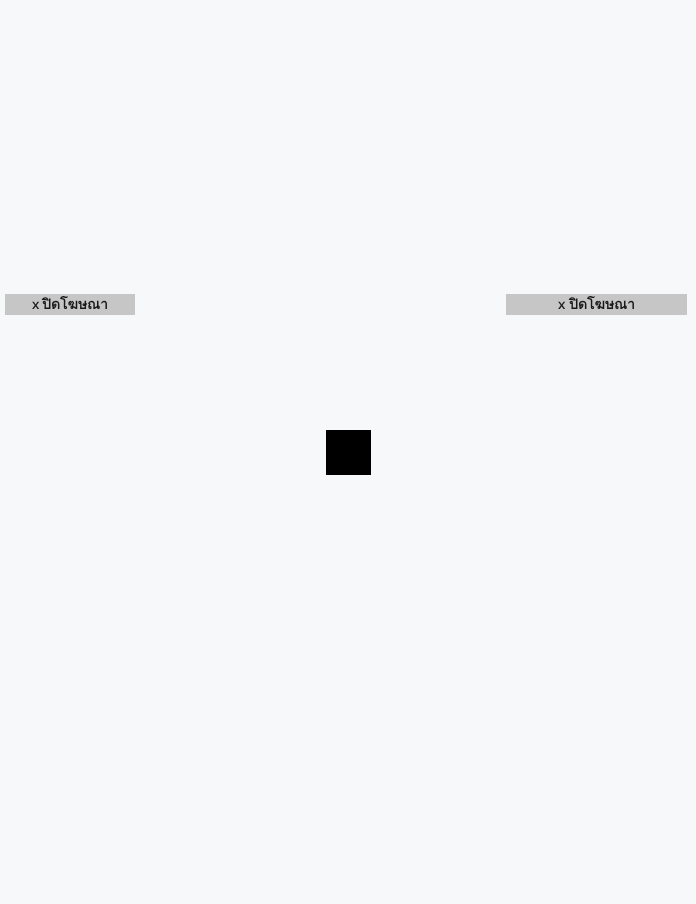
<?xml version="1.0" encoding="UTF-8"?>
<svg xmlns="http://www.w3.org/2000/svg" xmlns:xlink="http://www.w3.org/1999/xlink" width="696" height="904">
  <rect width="100%" height="100%" fill="#f7f8f9" />
  <rect x="5" y="294" width="130" height="21" fill="#c6c6c6" />
  <rect x="506" y="294" width="181" height="21" fill="#c6c6c6" />
  <rect x="326" y="430" width="45" height="45" fill="#000000" />
  <text x="32" y="309" style="font-family: Raleway; font-size: 14px; font-weight: 600; fill: #191919">x</text>
  <text x="42" y="309" style="font-family: Loma; font-size: 14px; font-weight: bold; fill: #191919">ปิดโฆษณา</text>
  <text x="558" y="309" style="font-family: Raleway; font-size: 14px; font-weight: 600; fill: #191919">x</text>
  <text x="569" y="309" style="font-family: Loma; font-size: 14px; font-weight: bold; fill: #191919">ปิดโฆษณา</text>
</svg>
